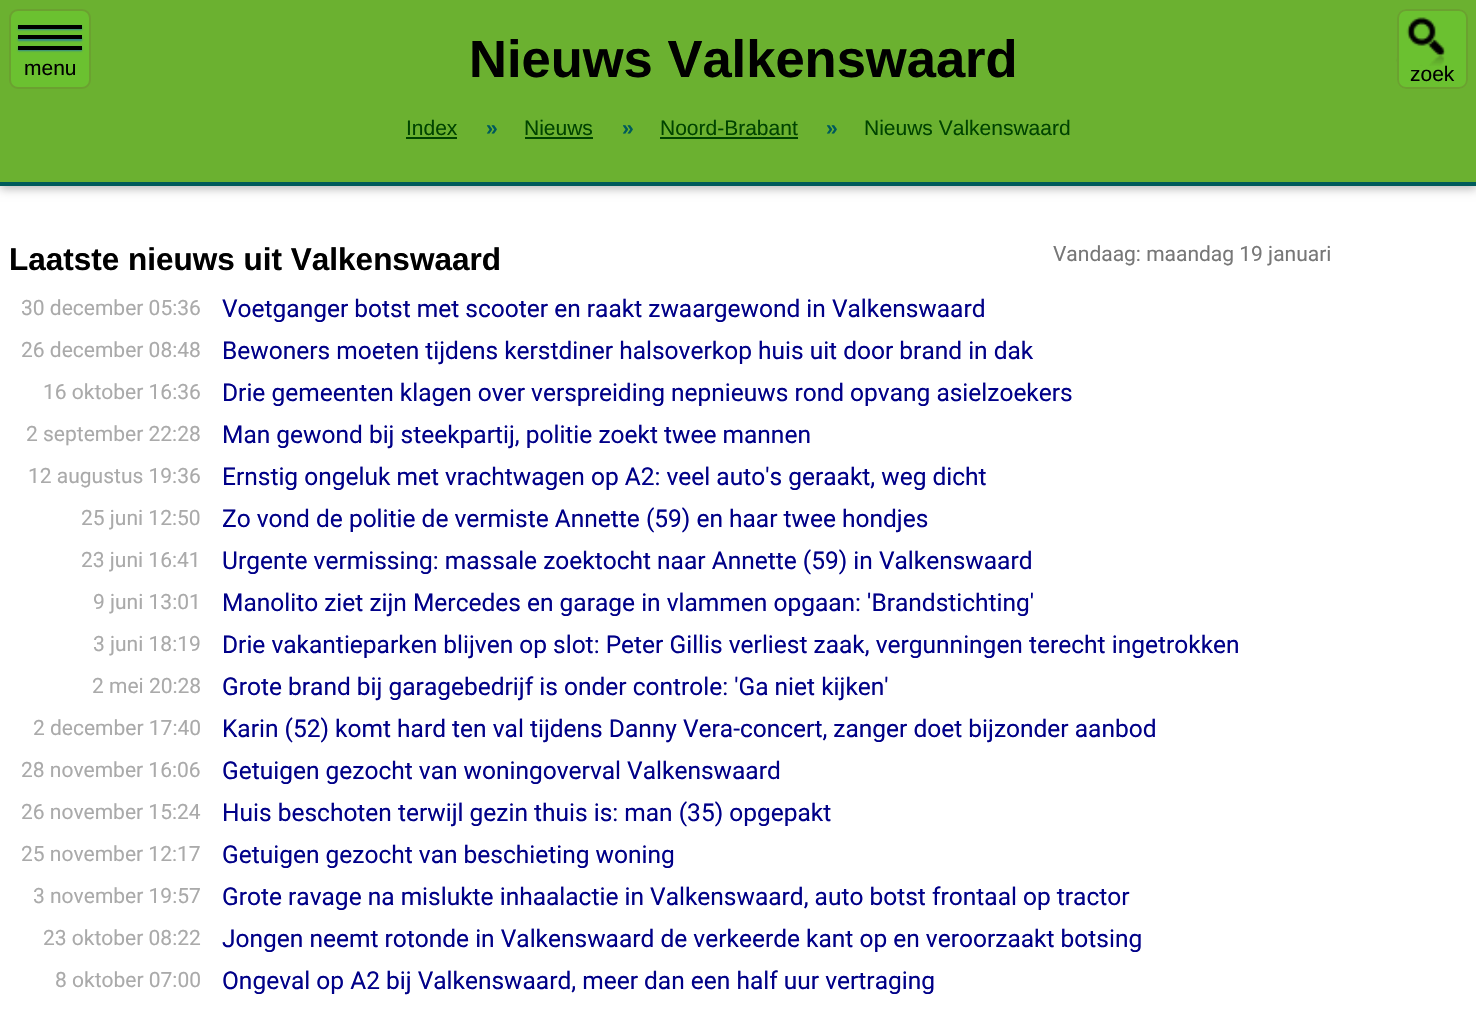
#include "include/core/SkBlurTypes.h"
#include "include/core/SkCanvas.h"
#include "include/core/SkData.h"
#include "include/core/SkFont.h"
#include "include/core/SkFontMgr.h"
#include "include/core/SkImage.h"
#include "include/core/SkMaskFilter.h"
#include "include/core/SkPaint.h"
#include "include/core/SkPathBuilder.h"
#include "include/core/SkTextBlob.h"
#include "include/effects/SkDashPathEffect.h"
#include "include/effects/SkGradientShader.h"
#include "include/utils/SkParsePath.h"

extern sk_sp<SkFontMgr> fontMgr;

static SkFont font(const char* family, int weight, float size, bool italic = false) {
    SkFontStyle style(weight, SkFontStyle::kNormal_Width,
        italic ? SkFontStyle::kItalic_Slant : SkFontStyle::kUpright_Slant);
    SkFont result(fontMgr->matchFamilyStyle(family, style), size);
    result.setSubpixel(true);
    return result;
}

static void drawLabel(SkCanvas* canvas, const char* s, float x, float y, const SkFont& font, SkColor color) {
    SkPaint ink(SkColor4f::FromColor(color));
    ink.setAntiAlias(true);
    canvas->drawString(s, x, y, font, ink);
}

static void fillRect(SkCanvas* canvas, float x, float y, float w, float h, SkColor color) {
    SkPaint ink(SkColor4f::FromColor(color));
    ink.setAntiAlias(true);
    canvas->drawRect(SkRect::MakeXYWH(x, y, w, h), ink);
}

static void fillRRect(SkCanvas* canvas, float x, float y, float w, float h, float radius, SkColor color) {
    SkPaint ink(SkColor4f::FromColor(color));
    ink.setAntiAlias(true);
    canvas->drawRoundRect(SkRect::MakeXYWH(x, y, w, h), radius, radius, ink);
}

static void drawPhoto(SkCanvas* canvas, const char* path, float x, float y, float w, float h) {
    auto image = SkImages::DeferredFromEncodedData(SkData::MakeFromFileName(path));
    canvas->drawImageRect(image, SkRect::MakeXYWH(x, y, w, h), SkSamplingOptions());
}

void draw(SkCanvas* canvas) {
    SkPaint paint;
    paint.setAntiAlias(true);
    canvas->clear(0xFFFFFFFF);
    paint.setColor(0xFFBBBBBB);
    paint.setMaskFilter(SkMaskFilter::MakeBlur(kNormal_SkBlurStyle, 4.5f));
    canvas->drawRect(SkRect::MakeXYWH(0, 4, 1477, 185), paint);
    paint.setMaskFilter(nullptr);
    fillRect(canvas, 0, 0, 1476, 182, 0xFF6BB130);
    fillRect(canvas, 0, 182, 1476, 4, 0xFF005B5B);
    paint.setColor(0xFF6BC130);
    canvas->drawRoundRect(SkRect::MakeXYWH(10, 10, 80, 78), 8, 8, paint);
    paint.setStroke(true);
    paint.setStrokeWidth(2);
    paint.setColor(0xFF6BA130);
    canvas->drawRoundRect(SkRect::MakeXYWH(10, 10, 80, 78), 8, 8, paint);
    paint.setStroke(false);
    paint.setColor(0xFF338888);
    paint.setMaskFilter(SkMaskFilter::MakeBlur(kNormal_SkBlurStyle, 1));
    canvas->drawRect(SkRect::MakeXYWH(18, 26, 64, 4), paint);
    paint.setMaskFilter(nullptr);
    fillRect(canvas, 18, 25, 64, 4, 0xFF000000);
    paint.setMaskFilter(SkMaskFilter::MakeBlur(kNormal_SkBlurStyle, 1));
    canvas->drawRect(SkRect::MakeXYWH(18, 37, 64, 4), paint);
    paint.setMaskFilter(nullptr);
    fillRect(canvas, 18, 35, 64, 4, 0xFF000000);
    paint.setMaskFilter(SkMaskFilter::MakeBlur(kNormal_SkBlurStyle, 1));
    canvas->drawRect(SkRect::MakeXYWH(18, 47, 64, 4), paint);
    paint.setMaskFilter(nullptr);
    fillRect(canvas, 18, 46, 64, 4, 0xFF000000);
    SkFont font1 = font("Liberation Sans", 400, 21);
    drawLabel(canvas, "menu", 24, 75, font1, 0xFF000000);
    SkFont font2 = font("Liberation Sans", 700, 52.5f);
    drawLabel(canvas, "Nieuws Valkenswaard", 469, 77, font2, 0xFF000000);
    drawLabel(canvas, "Index", 406, 135, font1, 0xFF004400);
    fillRect(canvas, 406, 137, 51, 2, 0xFF004400);
    SkFont font3 = font("Liberation Sans", 700, 21);
    drawLabel(canvas, "»", 486, 135, font3, 0xFF005B5B);
    drawLabel(canvas, "Nieuws", 524, 135, font1, 0xFF004400);
    fillRect(canvas, 525, 137, 68, 2, 0xFF004400);
    drawLabel(canvas, "»", 622, 135, font3, 0xFF005B5B);
    drawLabel(canvas, "Noord-Brabant", 660, 135, font1, 0xFF004400);
    fillRect(canvas, 660, 137, 138, 2, 0xFF004400);
    drawLabel(canvas, "»", 826, 135, font3, 0xFF005B5B);
    drawLabel(canvas, "Nieuws Valkenswaard", 864, 135, font1, 0xFF004400);
    fillRRect(canvas, 1397, 9, 71, 80, 9, 0xFF6BC130);
    drawPhoto(canvas, "assets/img1.png", 1396, 17, 50, 49);
    paint.setStroke(true);
    paint.setColor(0xFF6BA130);
    canvas->drawRoundRect(SkRect::MakeXYWH(1398, 10, 69, 78), 8, 8, paint);
    drawLabel(canvas, "zoek", 1410, 81, font1, 0xFF000000);
    SkFont font4 = font("Liberation Sans", 700, 31.5f);
    drawLabel(canvas, "Laatste nieuws uit Valkenswaard", 9, 270, font4, 0xFF000000);
    SkFont font5 = font("Roboto", 400, 21);
    drawLabel(canvas, "Vandaag: maandag 19 januari", 1053, 261, font5, 0xFF777777);
    drawLabel(canvas, "30 december 05:36", 21, 315, font5, 0xFFAAAAAA);
    SkFont font6 = font("Roboto", 400, 24.5f);
    drawLabel(canvas, "Voetganger botst met scooter en raakt zwaargewond in Valkenswaard", 222, 317, font6, 0xFF000088);
    drawLabel(canvas, "26 december 08:48", 21, 357, font5, 0xFFAAAAAA);
    drawLabel(canvas, "Bewoners moeten tijdens kerstdiner halsoverkop huis uit door brand in dak", 222, 359, font6, 0xFF000088);
    drawLabel(canvas, "16 oktober 16:36", 43, 399, font5, 0xFFAAAAAA);
    drawLabel(canvas, "Drie gemeenten klagen over verspreiding nepnieuws rond opvang asielzoekers", 222, 401, font6, 0xFF000088);
    drawLabel(canvas, "2 september 22:28", 26, 441, font5, 0xFFAAAAAA);
    drawLabel(canvas, "Man gewond bij steekpartij, politie zoekt twee mannen", 222, 443, font6, 0xFF000088);
    drawLabel(canvas, "12 augustus 19:36", 28, 483, font5, 0xFFAAAAAA);
    drawLabel(canvas, "Ernstig ongeluk met vrachtwagen op A2: veel auto's geraakt, weg dicht", 222, 485, font6, 0xFF000088);
    drawLabel(canvas, "25 juni 12:50", 81, 525, font5, 0xFFAAAAAA);
    drawLabel(canvas, "Zo vond de politie de vermiste Annette (59) en haar twee hondjes", 222, 527, font6, 0xFF000088);
    drawLabel(canvas, "23 juni 16:41", 81, 567, font5, 0xFFAAAAAA);
    drawLabel(canvas, "Urgente vermissing: massale zoektocht naar Annette (59) in Valkenswaard", 222, 569, font6, 0xFF000088);
    drawLabel(canvas, "9 juni 13:01", 93, 609, font5, 0xFFAAAAAA);
    drawLabel(canvas, "Manolito ziet zijn Mercedes en garage in vlammen opgaan: 'Brandstichting'", 222, 611, font6, 0xFF000088);
    drawLabel(canvas, "3 juni 18:19", 93, 651, font5, 0xFFAAAAAA);
    drawLabel(canvas, "Drie vakantieparken blijven op slot: Peter Gillis verliest zaak, vergunningen terecht ingetrokken", 222, 653, font6, 0xFF000088);
    drawLabel(canvas, "2 mei 20:28", 92, 693, font5, 0xFFAAAAAA);
    drawLabel(canvas, "Grote brand bij garagebedrijf is onder controle: 'Ga niet kijken'", 222, 695, font6, 0xFF000088);
    drawLabel(canvas, "2 december 17:40", 33, 735, font5, 0xFFAAAAAA);
    drawLabel(canvas, "Karin (52) komt hard ten val tijdens Danny Vera-concert, zanger doet bijzonder aanbod", 222, 737, font6, 0xFF000088);
    drawLabel(canvas, "28 november 16:06", 21, 777, font5, 0xFFAAAAAA);
    drawLabel(canvas, "Getuigen gezocht van woningoverval Valkenswaard", 222, 779, font6, 0xFF000088);
    drawLabel(canvas, "26 november 15:24", 21, 819, font5, 0xFFAAAAAA);
    drawLabel(canvas, "Huis beschoten terwijl gezin thuis is: man (35) opgepakt", 222, 821, font6, 0xFF000088);
    drawLabel(canvas, "25 november 12:17", 21, 861, font5, 0xFFAAAAAA);
    drawLabel(canvas, "Getuigen gezocht van beschieting woning", 222, 863, font6, 0xFF000088);
    drawLabel(canvas, "3 november 19:57", 33, 903, font5, 0xFFAAAAAA);
    drawLabel(canvas, "Grote ravage na mislukte inhaalactie in Valkenswaard, auto botst frontaal op tractor", 222, 905, font6, 0xFF000088);
    drawLabel(canvas, "23 oktober 08:22", 43, 945, font5, 0xFFAAAAAA);
    drawLabel(canvas, "Jongen neemt rotonde in Valkenswaard de verkeerde kant op en veroorzaakt botsing", 222, 947, font6, 0xFF000088);
    drawLabel(canvas, "8 oktober 07:00", 55, 987, font5, 0xFFAAAAAA);
    drawLabel(canvas, "Ongeval op A2 bij Valkenswaard, meer dan een half uur vertraging", 222, 989, font6, 0xFF000088);
}
